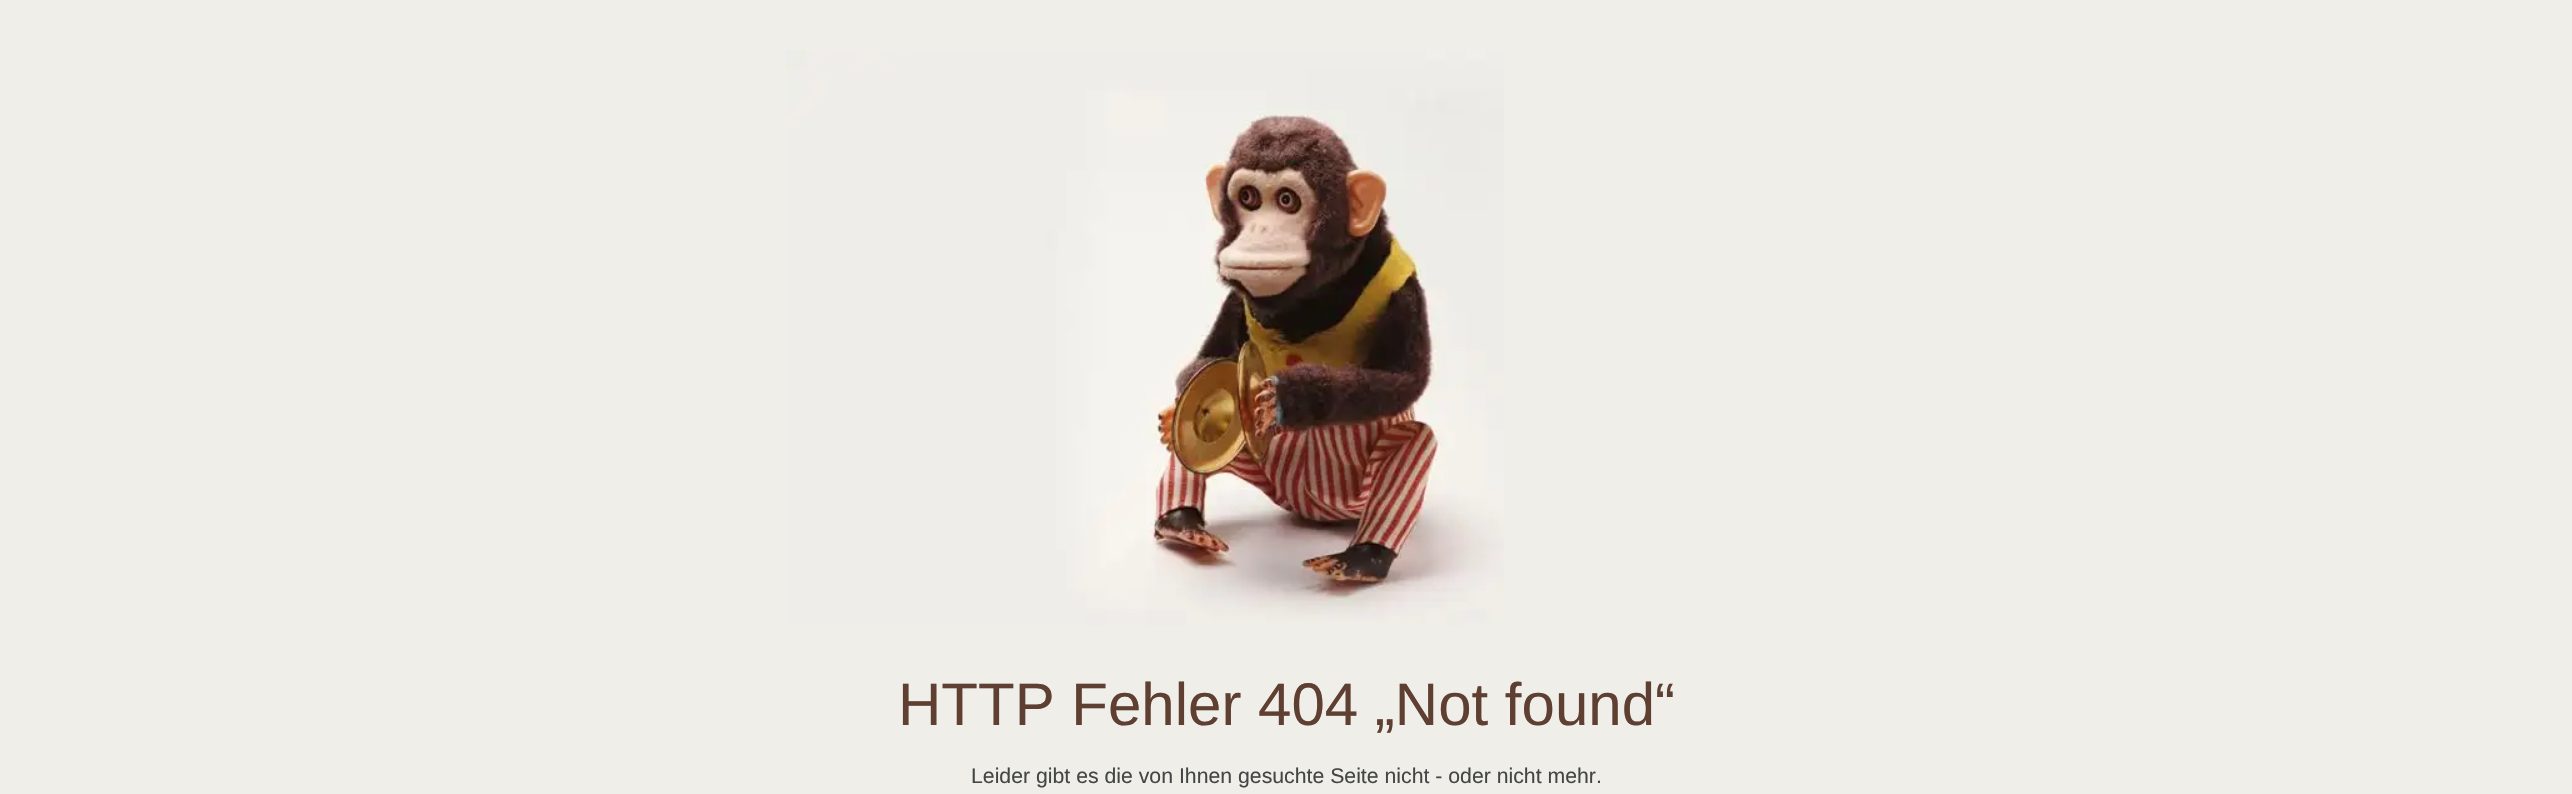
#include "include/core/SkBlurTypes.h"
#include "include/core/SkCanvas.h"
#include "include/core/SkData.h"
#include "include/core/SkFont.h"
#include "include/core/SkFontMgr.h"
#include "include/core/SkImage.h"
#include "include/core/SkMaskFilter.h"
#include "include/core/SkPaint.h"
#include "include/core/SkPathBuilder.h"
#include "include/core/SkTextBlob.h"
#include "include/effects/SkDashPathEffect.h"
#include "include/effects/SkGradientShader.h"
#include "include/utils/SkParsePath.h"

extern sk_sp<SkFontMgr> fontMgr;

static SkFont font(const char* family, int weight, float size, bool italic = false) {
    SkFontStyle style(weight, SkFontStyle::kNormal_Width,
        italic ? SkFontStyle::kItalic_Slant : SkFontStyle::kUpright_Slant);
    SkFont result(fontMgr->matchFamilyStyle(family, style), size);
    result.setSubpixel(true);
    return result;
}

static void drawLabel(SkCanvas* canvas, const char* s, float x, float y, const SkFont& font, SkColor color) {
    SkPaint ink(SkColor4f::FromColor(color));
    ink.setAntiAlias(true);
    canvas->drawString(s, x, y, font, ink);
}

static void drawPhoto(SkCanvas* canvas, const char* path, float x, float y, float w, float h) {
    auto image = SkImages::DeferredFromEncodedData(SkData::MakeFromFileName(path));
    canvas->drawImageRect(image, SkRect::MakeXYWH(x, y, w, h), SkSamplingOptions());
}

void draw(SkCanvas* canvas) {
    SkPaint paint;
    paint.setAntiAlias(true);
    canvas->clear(0xFFEFEEE9);
    drawPhoto(canvas, "assets/img1.png", 786, 50, 718, 575);
    SkFont font1 = font("Liberation Sans", 400, 60);
    drawLabel(canvas, "HTTP Fehler 404 „Not found“", 898, 725, font1, 0xFF5F3F32);
    SkFont font2 = font("Liberation Sans", 400, 21.25f);
    drawLabel(canvas, "Leider gibt es die von Ihnen gesuchte Seite nicht - oder nicht mehr.", 971, 783, font2, 0xFF444645);
}
